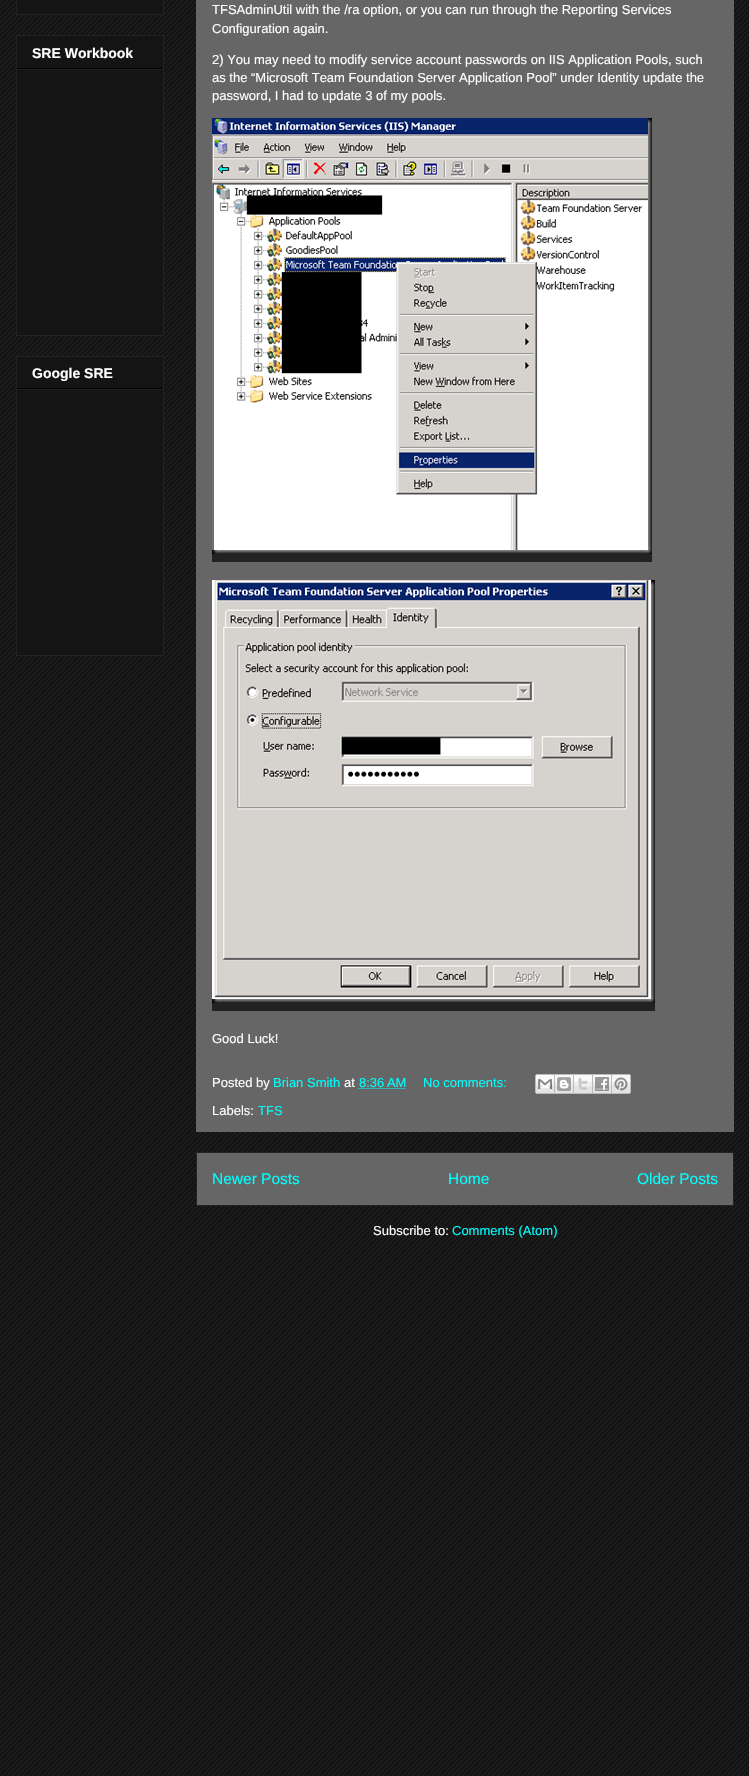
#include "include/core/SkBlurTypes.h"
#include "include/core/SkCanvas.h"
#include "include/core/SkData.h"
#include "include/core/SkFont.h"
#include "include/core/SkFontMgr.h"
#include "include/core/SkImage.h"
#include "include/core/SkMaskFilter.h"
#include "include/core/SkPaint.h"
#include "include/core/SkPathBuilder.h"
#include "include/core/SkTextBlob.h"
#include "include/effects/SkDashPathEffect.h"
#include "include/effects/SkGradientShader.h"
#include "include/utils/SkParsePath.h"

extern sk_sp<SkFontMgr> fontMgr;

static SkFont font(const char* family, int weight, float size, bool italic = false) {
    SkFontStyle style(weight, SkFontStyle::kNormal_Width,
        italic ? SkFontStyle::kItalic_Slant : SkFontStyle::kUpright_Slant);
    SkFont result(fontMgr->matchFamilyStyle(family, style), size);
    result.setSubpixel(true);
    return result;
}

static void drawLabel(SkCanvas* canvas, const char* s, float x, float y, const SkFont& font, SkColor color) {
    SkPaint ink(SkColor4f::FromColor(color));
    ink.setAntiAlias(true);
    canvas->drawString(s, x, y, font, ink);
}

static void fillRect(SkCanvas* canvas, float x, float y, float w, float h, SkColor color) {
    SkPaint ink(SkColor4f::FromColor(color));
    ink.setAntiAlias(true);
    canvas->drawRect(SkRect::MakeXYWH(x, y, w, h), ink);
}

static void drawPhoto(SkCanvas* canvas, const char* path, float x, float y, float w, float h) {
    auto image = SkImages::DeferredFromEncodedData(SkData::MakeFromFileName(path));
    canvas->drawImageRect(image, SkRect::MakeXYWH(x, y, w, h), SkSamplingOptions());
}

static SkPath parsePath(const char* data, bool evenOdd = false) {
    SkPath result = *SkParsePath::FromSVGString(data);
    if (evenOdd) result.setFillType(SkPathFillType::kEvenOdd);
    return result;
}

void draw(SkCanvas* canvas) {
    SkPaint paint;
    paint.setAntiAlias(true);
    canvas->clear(0xFF141414);
    drawPhoto(canvas, "assets/img1.png", 0, 0, 749, 1776);
    paint.setColor(0xFF141414);
    canvas->drawRect(SkRect::MakeXYWH(16.5f, -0.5f, 147, 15), paint);
    paint.setStroke(true);
    paint.setStrokeWidth(1);
    paint.setColor(0xFF222222);
    canvas->drawRect(SkRect::MakeXYWH(16.5f, -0.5f, 147, 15), paint);
    paint.setStroke(false);
    paint.setColor(0xFF141414);
    canvas->drawRect(SkRect::MakeXYWH(16.5f, 35.5f, 147, 300), paint);
    paint.setStroke(true);
    paint.setColor(0xFF222222);
    canvas->drawRect(SkRect::MakeXYWH(16.5f, 35.5f, 147, 300), paint);
    fillRect(canvas, 17, 68, 146, 1, 0xFF000000);
    SkFont font1 = font("Liberation Sans", 700, 14);
    drawLabel(canvas, "SRE Workbook", 32, 58, font1, 0xFFFFFFFF);
    fillRect(canvas, 17, 69, 146, 1, 0xFF222222);
    paint.setStroke(false);
    paint.setColor(0xFF141414);
    canvas->drawRect(SkRect::MakeXYWH(16.5f, 356.5f, 147, 299), paint);
    paint.setStroke(true);
    paint.setColor(0xFF222222);
    canvas->drawRect(SkRect::MakeXYWH(16.5f, 356.5f, 147, 299), paint);
    fillRect(canvas, 17, 388, 146, 1, 0xFF000000);
    drawLabel(canvas, "Google SRE", 32, 378, font1, 0xFFFFFFFF);
    fillRect(canvas, 17, 389, 146, 1, 0xFF222222);
    fillRect(canvas, 196, 0, 538, 1132, 0xFF666666);
    SkFont font2 = font("Liberation Sans", 400, 13);
    drawLabel(canvas, "TFSAdminUtil with the /ra option, or you can run through the Reporting Services", 212, 14, font2, 0xFFFFFFFF);
    drawLabel(canvas, "Configuration again.", 212, 33, font2, 0xFFFFFFFF);
    drawLabel(canvas, "2) You may need to modify service account passwords on IIS Application Pools, such", 212, 64, font2, 0xFFFFFFFF);
    drawLabel(canvas, "as the “Microsoft Team Foundation Server Application Pool” under Identity update the", 212, 82, font2, 0xFFFFFFFF);
    drawLabel(canvas, "password, I had to update 3 of my pools.", 212, 100, font2, 0xFFFFFFFF);
    drawPhoto(canvas, "assets/img2.png", 212, 118, 440, 436);
    fillRect(canvas, 212, 554, 440, 8, 0xFF222222);
    drawPhoto(canvas, "assets/img3.png", 212, 580, 443, 423);
    fillRect(canvas, 212, 1003, 443, 8, 0xFF222222);
    drawLabel(canvas, "Good Luck!", 212, 1043, font2, 0xFFFFFFFF);
    drawLabel(canvas, "Posted by", 212, 1087, font2, 0xFFFFFFFF);
    drawLabel(canvas, "Brian Smith", 273, 1087, font2, 0xFF00FFFF);
    drawLabel(canvas, "at", 344, 1087, font2, 0xFFFFFFFF);
    drawLabel(canvas, "8:36 AM", 359, 1087, font2, 0xFF00FFFF);
    paint.setColor(0xFF00FFFF);
    paint.setPathEffect(SkDashPathEffect::Make({{1, 1}}, 0));
    canvas->drawPath(parsePath("M358.5 1088.5H406"), paint);
    paint.setPathEffect(nullptr);
    drawLabel(canvas, "No comments:", 423, 1087, font2, 0xFF00FFFF);
    drawPhoto(canvas, "assets/img4.png", 535, 1074, 20, 20);
    drawPhoto(canvas, "assets/img5.png", 555, 1074, 19, 20);
    drawPhoto(canvas, "assets/img6.png", 574, 1074, 19, 20);
    drawPhoto(canvas, "assets/img7.png", 593, 1074, 19, 20);
    drawPhoto(canvas, "assets/img8.png", 612, 1074, 19, 20);
    drawLabel(canvas, "Labels:", 212, 1115, font2, 0xFFFFFFFF);
    drawLabel(canvas, "TFS", 258, 1115, font2, 0xFF00FFFF);
    paint.setStroke(false);
    paint.setColor(0xFF666666);
    canvas->drawRect(SkRect::MakeXYWH(196.5f, 1152.5f, 537, 53), paint);
    paint.setStroke(true);
    paint.setColor(0xFF222222);
    canvas->drawRect(SkRect::MakeXYWH(196.5f, 1152.5f, 537, 53), paint);
    SkFont font3 = font("Liberation Sans", 400, 15.5f);
    drawLabel(canvas, "Newer Posts", 212, 1184, font3, 0xFF00FFFF);
    drawLabel(canvas, "Home", 448, 1184, font3, 0xFF00FFFF);
    drawLabel(canvas, "Older Posts", 637, 1184, font3, 0xFF00FFFF);
    drawLabel(canvas, "Subscribe to:", 373, 1235, font2, 0xFFFFFFFF);
    drawLabel(canvas, "Comments (Atom)", 452, 1235, font2, 0xFF00FFFF);
}
